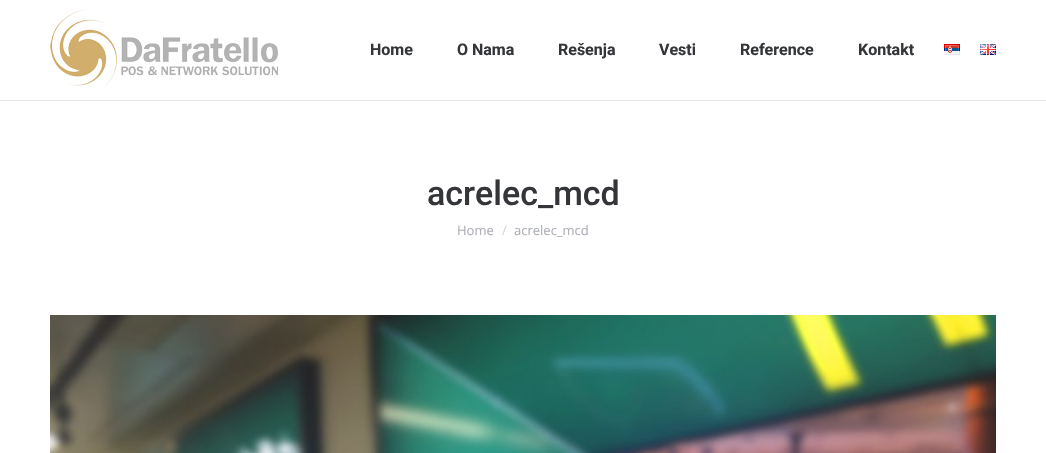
#include "include/core/SkBlurTypes.h"
#include "include/core/SkCanvas.h"
#include "include/core/SkData.h"
#include "include/core/SkFont.h"
#include "include/core/SkFontMgr.h"
#include "include/core/SkImage.h"
#include "include/core/SkMaskFilter.h"
#include "include/core/SkPaint.h"
#include "include/core/SkPathBuilder.h"
#include "include/core/SkTextBlob.h"
#include "include/effects/SkDashPathEffect.h"
#include "include/effects/SkGradientShader.h"
#include "include/utils/SkParsePath.h"

extern sk_sp<SkFontMgr> fontMgr;

static SkFont font(const char* family, int weight, float size, bool italic = false) {
    SkFontStyle style(weight, SkFontStyle::kNormal_Width,
        italic ? SkFontStyle::kItalic_Slant : SkFontStyle::kUpright_Slant);
    SkFont result(fontMgr->matchFamilyStyle(family, style), size);
    result.setSubpixel(true);
    return result;
}

static void drawLabel(SkCanvas* canvas, const char* s, float x, float y, const SkFont& font, SkColor color) {
    SkPaint ink(SkColor4f::FromColor(color));
    ink.setAntiAlias(true);
    canvas->drawString(s, x, y, font, ink);
}

static void fillRect(SkCanvas* canvas, float x, float y, float w, float h, SkColor color) {
    SkPaint ink(SkColor4f::FromColor(color));
    ink.setAntiAlias(true);
    canvas->drawRect(SkRect::MakeXYWH(x, y, w, h), ink);
}

static void drawPhoto(SkCanvas* canvas, const char* path, float x, float y, float w, float h) {
    auto image = SkImages::DeferredFromEncodedData(SkData::MakeFromFileName(path));
    canvas->drawImageRect(image, SkRect::MakeXYWH(x, y, w, h), SkSamplingOptions());
}

void draw(SkCanvas* canvas) {
    SkPaint paint;
    paint.setAntiAlias(true);
    canvas->clear(0xFFFFFFFF);
    fillRect(canvas, 0, 100, 1046, 1, 0xFFE6E7E9);
    drawPhoto(canvas, "assets/img1.png", 50, 10, 228, 78);
    SkFont font1 = font("Roboto", 700, 16);
    drawLabel(canvas, "Home", 370, 55, font1, 0xFF333539);
    drawLabel(canvas, "O Nama", 457, 55, font1, 0xFF333539);
    drawLabel(canvas, "Rešenja", 558, 55, font1, 0xFF333539);
    drawLabel(canvas, "Vesti", 659, 55, font1, 0xFF333539);
    drawLabel(canvas, "Reference", 740, 55, font1, 0xFF333539);
    drawLabel(canvas, "Kontakt", 858, 55, font1, 0xFF333539);
    drawPhoto(canvas, "assets/img2.png", 944, 44, 16, 11);
    drawPhoto(canvas, "assets/img3.png", 980, 44, 16, 11);
    SkFont font2 = font("Roboto", 500, 34);
    drawLabel(canvas, "acrelec_mcd", 427, 205, font2, 0xFF333539);
    SkFont font3 = font("Open Sans", 400, 13);
    drawLabel(canvas, "Home", 457, 235, font3, 0xFFADB0B6);
    drawLabel(canvas, "/", 502, 235, font3, 0xFFD6D8DB);
    drawLabel(canvas, "acrelec_mcd", 514, 235, font3, 0xFFADB0B6);
    drawPhoto(canvas, "assets/img4.png", 50, 315, 946, 138);
}
